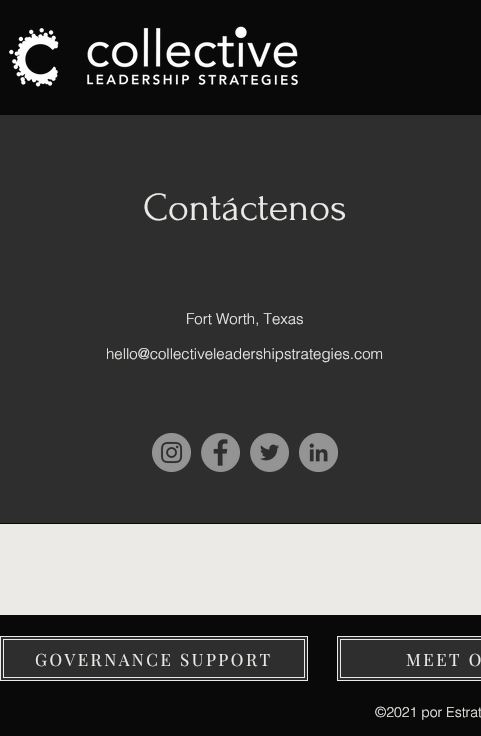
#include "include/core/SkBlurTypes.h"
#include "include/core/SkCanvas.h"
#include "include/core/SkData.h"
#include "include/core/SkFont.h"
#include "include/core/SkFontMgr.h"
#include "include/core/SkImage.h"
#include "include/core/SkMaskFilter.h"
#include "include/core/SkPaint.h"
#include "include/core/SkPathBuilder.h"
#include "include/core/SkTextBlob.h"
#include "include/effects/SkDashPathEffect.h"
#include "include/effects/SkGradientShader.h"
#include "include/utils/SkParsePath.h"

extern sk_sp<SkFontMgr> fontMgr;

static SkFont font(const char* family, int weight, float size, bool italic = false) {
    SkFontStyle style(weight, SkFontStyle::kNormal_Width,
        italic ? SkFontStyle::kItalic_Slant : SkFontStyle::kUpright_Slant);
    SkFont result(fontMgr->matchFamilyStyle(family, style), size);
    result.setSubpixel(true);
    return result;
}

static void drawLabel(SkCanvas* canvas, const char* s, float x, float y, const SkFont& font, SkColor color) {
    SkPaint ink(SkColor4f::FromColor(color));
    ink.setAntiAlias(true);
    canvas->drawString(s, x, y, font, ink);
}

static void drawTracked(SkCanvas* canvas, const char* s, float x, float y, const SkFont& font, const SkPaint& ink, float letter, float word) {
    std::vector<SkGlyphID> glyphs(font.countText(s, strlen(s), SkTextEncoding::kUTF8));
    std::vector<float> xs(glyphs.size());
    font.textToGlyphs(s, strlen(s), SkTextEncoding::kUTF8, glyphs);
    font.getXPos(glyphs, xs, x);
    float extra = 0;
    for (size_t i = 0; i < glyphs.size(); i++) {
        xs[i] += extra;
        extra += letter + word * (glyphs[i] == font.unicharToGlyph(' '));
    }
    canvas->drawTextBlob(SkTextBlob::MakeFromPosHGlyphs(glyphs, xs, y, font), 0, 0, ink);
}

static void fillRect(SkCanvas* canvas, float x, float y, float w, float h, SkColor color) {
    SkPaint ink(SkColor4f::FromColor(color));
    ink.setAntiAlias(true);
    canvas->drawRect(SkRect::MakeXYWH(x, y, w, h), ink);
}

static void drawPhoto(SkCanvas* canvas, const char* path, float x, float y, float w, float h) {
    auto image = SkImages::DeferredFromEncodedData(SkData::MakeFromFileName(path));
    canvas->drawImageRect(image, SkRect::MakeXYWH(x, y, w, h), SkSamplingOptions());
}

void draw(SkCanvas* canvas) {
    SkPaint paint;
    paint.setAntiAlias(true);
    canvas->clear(0xFFEBEAE6);
    fillRect(canvas, 0, 0, 481, 115, 0xFF090909);
    drawPhoto(canvas, "assets/img1.png", 9, 28, 50, 59);
    drawPhoto(canvas, "assets/img2.png", 87, 26, 211, 60);
    fillRect(canvas, 0, 115, 481, 408, 0xFF2E2E2E);
    SkFont font1 = font("Forum", 400, 40);
    drawLabel(canvas, "Contáctenos", 143, 220, font1, 0xFFEBEAE6);
    SkFont font2 = font("helvetica", 300, 15);
    drawLabel(canvas, "Fort Worth, Texas", 186, 324, font2, 0xFFEBEAE6);
    drawLabel(canvas, "hello@collectiveleadershipstrategies.com", 106, 359, font2, 0xFFEBEAE6);
    drawPhoto(canvas, "assets/img3.png", 152, 433, 39, 39);
    drawPhoto(canvas, "assets/img4.png", 201, 433, 39, 39);
    drawPhoto(canvas, "assets/img5.png", 250, 433, 39, 39);
    drawPhoto(canvas, "assets/img6.png", 299, 433, 39, 39);
    fillRect(canvas, 0, 523, 481, 1, 0xFF090909);
    fillRect(canvas, 0, 615, 481, 121, 0xFF090909);
    paint.setColor(0xFF2E2E2E);
    canvas->drawRect(SkRect::MakeXYWH(0.5f, 636.5f, 307, 44), paint);
    paint.setStroke(true);
    paint.setStrokeWidth(1);
    paint.setColor(0xFFEBEAE6);
    canvas->drawRect(SkRect::MakeXYWH(0.5f, 636.5f, 307, 44), paint);
    canvas->drawRect(SkRect::MakeXYWH(3.5f, 639.5f, 301, 38), paint);
    SkFont font3 = font("Playfair Display", 400, 17);
    paint.setStroke(false);
    drawTracked(canvas, "GOVERNANCE SUPPORT", 35, 666, font3, paint, 2.5f, 0);
    paint.setColor(0xFF2E2E2E);
    canvas->drawRect(SkRect::MakeXYWH(337.5f, 636.5f, 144, 44), paint);
    paint.setStroke(true);
    paint.setColor(0xFFEBEAE6);
    canvas->drawRect(SkRect::MakeXYWH(337.5f, 636.5f, 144, 44), paint);
    canvas->drawRect(SkRect::MakeXYWH(340.5f, 639.5f, 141, 38), paint);
    paint.setStroke(false);
    drawTracked(canvas, "MEET O", 406, 666, font3, paint, 2.5f, 0);
    SkFont font4 = font("helvetica", 300, 14);
    drawLabel(canvas, "©2021 por Estrat", 375, 717, font4, 0xFFEBEAE6);
}
